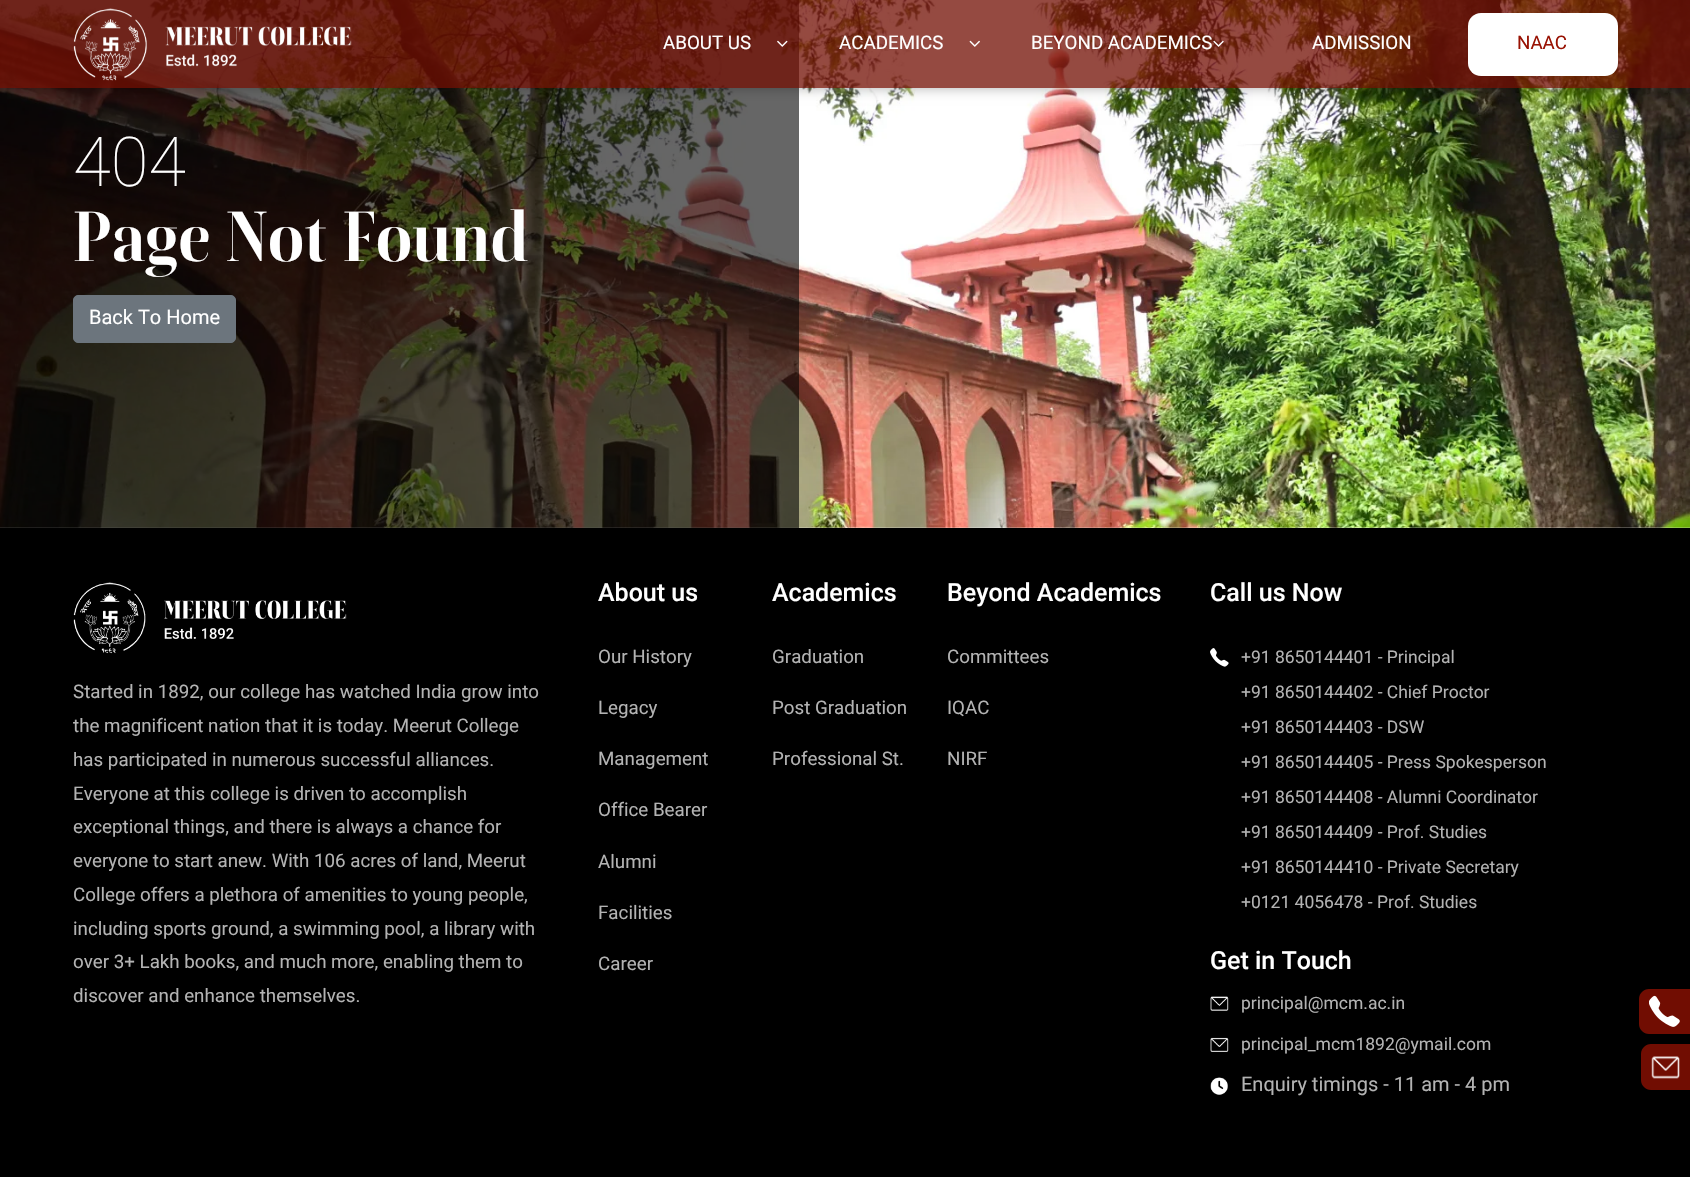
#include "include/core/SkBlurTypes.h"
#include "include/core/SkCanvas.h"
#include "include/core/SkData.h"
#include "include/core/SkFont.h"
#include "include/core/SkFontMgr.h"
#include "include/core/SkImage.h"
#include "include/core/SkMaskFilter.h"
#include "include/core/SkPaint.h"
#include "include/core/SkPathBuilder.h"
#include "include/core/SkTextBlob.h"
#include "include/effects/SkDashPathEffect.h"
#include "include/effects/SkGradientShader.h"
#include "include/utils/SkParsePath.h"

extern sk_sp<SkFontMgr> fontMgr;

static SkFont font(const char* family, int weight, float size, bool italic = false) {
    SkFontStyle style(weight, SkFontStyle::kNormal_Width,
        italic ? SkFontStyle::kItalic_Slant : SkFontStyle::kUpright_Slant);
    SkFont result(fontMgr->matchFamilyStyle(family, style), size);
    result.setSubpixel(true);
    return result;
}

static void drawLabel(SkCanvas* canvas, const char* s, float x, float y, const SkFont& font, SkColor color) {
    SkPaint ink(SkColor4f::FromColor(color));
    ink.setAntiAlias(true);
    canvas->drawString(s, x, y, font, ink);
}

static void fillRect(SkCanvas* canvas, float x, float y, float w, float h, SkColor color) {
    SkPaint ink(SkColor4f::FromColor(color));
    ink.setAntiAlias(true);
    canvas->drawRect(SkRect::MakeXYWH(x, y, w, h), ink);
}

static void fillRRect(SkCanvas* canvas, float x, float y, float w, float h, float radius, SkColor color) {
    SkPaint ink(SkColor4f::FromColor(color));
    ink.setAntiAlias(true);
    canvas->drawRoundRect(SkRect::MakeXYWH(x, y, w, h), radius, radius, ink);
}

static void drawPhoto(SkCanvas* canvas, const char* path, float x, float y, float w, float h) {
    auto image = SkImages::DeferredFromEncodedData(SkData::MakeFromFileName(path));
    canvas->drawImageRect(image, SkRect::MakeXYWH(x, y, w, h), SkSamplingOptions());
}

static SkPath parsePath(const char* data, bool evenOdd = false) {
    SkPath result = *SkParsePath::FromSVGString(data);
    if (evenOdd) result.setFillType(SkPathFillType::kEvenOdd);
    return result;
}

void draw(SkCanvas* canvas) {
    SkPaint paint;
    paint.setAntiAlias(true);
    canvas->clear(0xFFFFFFFF);
    drawPhoto(canvas, "assets/img5.png", 0, 0, 1690, 528);
    fillRect(canvas, 73, 0, 726, 528, 0x99000000);
    fillRect(canvas, 0, 0, 73, 528, 0x99000000);
    canvas->save();
    canvas->clipPath(parsePath("M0 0H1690V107H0ZM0 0H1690V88H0Z", true), true);
    paint.setColor(0x4D000000);
    paint.setMaskFilter(SkMaskFilter::MakeBlur(kNormal_SkBlurStyle, 6));
    canvas->drawRect(SkRect::MakeXYWH(0, 0, 1690, 88), paint);
    paint.setMaskFilter(nullptr);
    canvas->restore();
    fillRect(canvas, 0, 0, 1690, 88, 0xBF710D02);
    drawPhoto(canvas, "assets/img1.png", 73, 8, 279, 73);
    SkFont font1 = font("Roboto", 400, 18.75f);
    drawLabel(canvas, "ABOUT US", 663, 49, font1, 0xFFFFFFFF);
    drawPhoto(canvas, "assets/img2.png", 777, 40, 11, 7);
    drawLabel(canvas, "ACADEMICS", 839, 49, font1, 0xFFFFFFFF);
    drawPhoto(canvas, "assets/img3.png", 969, 40, 11, 7);
    drawLabel(canvas, "BEYOND ACADEMICS", 1031, 49, font1, 0xFFFFFFFF);
    drawPhoto(canvas, "assets/img4.png", 1213, 40, 11, 7);
    drawLabel(canvas, "ADMISSION", 1312, 49, font1, 0xFFFFFFFF);
    fillRRect(canvas, 1468, 13, 150, 63, 13, 0xFFFFFFFF);
    drawLabel(canvas, "NAAC", 1517, 49, font1, 0xFF991203);
    SkFont font2 = font("Roboto", 100, 68.75f);
    drawLabel(canvas, "404", 73, 186, font2, 0xFFFFFFFF);
    SkFont font3 = font("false", 700, 68.75f);
    drawLabel(canvas, "Page Not Found", 73, 261, font3, 0xFFFFFFFF);
    paint.setColor(0xFF6C757D);
    canvas->drawRoundRect(SkRect::MakeXYWH(73.5f, 295.5f, 162, 47), 4.5f, 4.5f, paint);
    paint.setStroke(true);
    paint.setStrokeWidth(1);
    canvas->drawRoundRect(SkRect::MakeXYWH(73.5f, 295.5f, 162, 47), 4.5f, 4.5f, paint);
    SkFont font4 = font("Roboto", 400, 20);
    drawLabel(canvas, "Back To Home", 89, 324, font4, 0xFFFFFFFF);
    fillRect(canvas, 0, 528, 1690, 649, 0xFF000000);
    drawPhoto(canvas, "assets/img6.png", 73, 582, 274, 72);
    drawLabel(canvas, "Started in 1892, our college has watched India grow into", 73, 698, font1, 0xFFB3B3B3);
    drawLabel(canvas, "the magnificent nation that it is today. Meerut College", 73, 732, font1, 0xFFB3B3B3);
    drawLabel(canvas, "has participated in numerous successful alliances.", 73, 766, font1, 0xFFB3B3B3);
    drawLabel(canvas, "Everyone at this college is driven to accomplish", 73, 800, font1, 0xFFB3B3B3);
    drawLabel(canvas, "exceptional things, and there is always a chance for", 73, 833, font1, 0xFFB3B3B3);
    drawLabel(canvas, "everyone to start anew. With 106 acres of land, Meerut", 73, 867, font1, 0xFFB3B3B3);
    drawLabel(canvas, "College offers a plethora of amenities to young people,", 73, 901, font1, 0xFFB3B3B3);
    drawLabel(canvas, "including sports ground, a swimming pool, a library with", 73, 935, font1, 0xFFB3B3B3);
    drawLabel(canvas, "over 3+ Lakh books, and much more, enabling them to", 73, 968, font1, 0xFFB3B3B3);
    drawLabel(canvas, "discover and enhance themselves.", 73, 1002, font1, 0xFFB3B3B3);
    SkFont font5 = font("Roboto", 500, 25);
    drawLabel(canvas, "About us", 598, 601, font5, 0xFFFFFFFF);
    drawLabel(canvas, "Our History", 598, 663, font1, 0xFFB3B3B3);
    drawLabel(canvas, "Legacy", 598, 714, font1, 0xFFB3B3B3);
    drawLabel(canvas, "Management", 598, 765, font1, 0xFFB3B3B3);
    drawLabel(canvas, "Office Bearer", 598, 816, font1, 0xFFB3B3B3);
    drawLabel(canvas, "Alumni", 598, 868, font1, 0xFFB3B3B3);
    drawLabel(canvas, "Facilities", 598, 919, font1, 0xFFB3B3B3);
    drawLabel(canvas, "Career", 598, 970, font1, 0xFFB3B3B3);
    drawLabel(canvas, "Academics", 772, 601, font5, 0xFFFFFFFF);
    drawLabel(canvas, "Graduation", 772, 663, font1, 0xFFB3B3B3);
    drawLabel(canvas, "Post Graduation", 772, 714, font1, 0xFFB3B3B3);
    drawLabel(canvas, "Professional St.", 772, 765, font1, 0xFFB3B3B3);
    drawLabel(canvas, "Beyond Academics", 947, 601, font5, 0xFFFFFFFF);
    drawLabel(canvas, "Committees", 947, 663, font1, 0xFFB3B3B3);
    drawLabel(canvas, "IQAC", 947, 714, font1, 0xFFB3B3B3);
    drawLabel(canvas, "NIRF", 947, 765, font1, 0xFFB3B3B3);
    drawLabel(canvas, "Call us Now", 1210, 601, font5, 0xFFFFFFFF);
    drawPhoto(canvas, "assets/img7.png", 1210, 648, 19, 19);
    SkFont font6 = font("Roboto", 400, 17.5f);
    drawLabel(canvas, "+91 8650144401 - Principal", 1241, 663, font6, 0xFFB3B3B3);
    drawLabel(canvas, "+91 8650144402 - Chief Proctor", 1241, 698, font6, 0xFFB3B3B3);
    drawLabel(canvas, "+91 8650144403 - DSW", 1241, 733, font6, 0xFFB3B3B3);
    drawLabel(canvas, "+91 8650144405 - Press Spokesperson", 1241, 768, font6, 0xFFB3B3B3);
    drawLabel(canvas, "+91 8650144408 - Alumni Coordinator", 1241, 803, font6, 0xFFB3B3B3);
    drawLabel(canvas, "+91 8650144409 - Prof. Studies", 1241, 838, font6, 0xFFB3B3B3);
    drawLabel(canvas, "+91 8650144410 - Private Secretary", 1241, 873, font6, 0xFFB3B3B3);
    drawLabel(canvas, "+0121 4056478 - Prof. Studies", 1241, 908, font6, 0xFFB3B3B3);
    drawLabel(canvas, "Get in Touch", 1210, 969, font5, 0xFFFFFFFF);
    drawPhoto(canvas, "assets/img8.png", 1210, 996, 19, 15);
    drawLabel(canvas, "principal@mcm.ac.in", 1241, 1009, font6, 0xFFB3B3B3);
    drawPhoto(canvas, "assets/img9.png", 1210, 1037, 19, 15);
    drawLabel(canvas, "principal_mcm1892@ymail.com", 1241, 1050, font6, 0xFFB3B3B3);
    drawPhoto(canvas, "assets/img10.png", 1210, 1077, 18, 18);
    drawLabel(canvas, "Enquiry timings - 11 am - 4 pm", 1241, 1091, font4, 0xFFB3B3B3);
    paint.setStroke(false);
    paint.setColor(0xFF710D02);
    canvas->drawPath(parsePath("M1649 989H1690V1034H1649C1643.5 1034 1639 1029.5 1639 1024V999C1639 993.5 1643.5 989 1649 989Z"), paint);
    drawPhoto(canvas, "assets/img11.png", 1649, 995, 31, 32);
    canvas->drawPath(parsePath("M1651 1044H1690V1090H1651C1645.5 1090 1641 1085.5 1641 1080V1054C1641 1048.5 1645.5 1044 1651 1044Z"), paint);
    drawPhoto(canvas, "assets/img12.png", 1651, 1056, 29, 23);
}
